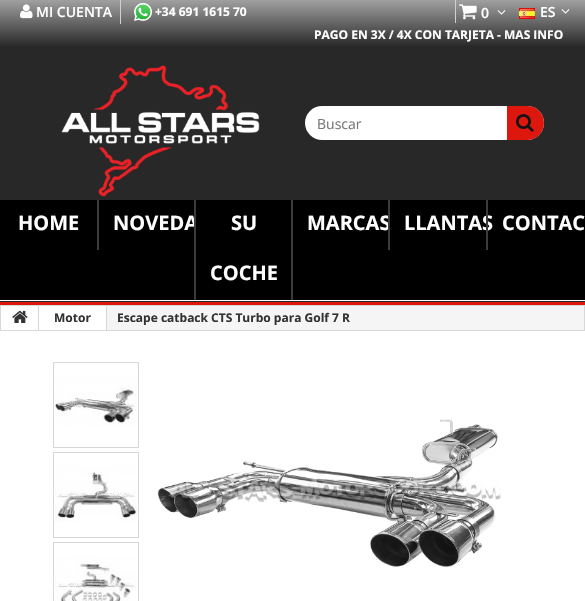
#include "include/core/SkBlurTypes.h"
#include "include/core/SkCanvas.h"
#include "include/core/SkData.h"
#include "include/core/SkFont.h"
#include "include/core/SkFontMgr.h"
#include "include/core/SkImage.h"
#include "include/core/SkMaskFilter.h"
#include "include/core/SkPaint.h"
#include "include/core/SkPathBuilder.h"
#include "include/core/SkTextBlob.h"
#include "include/effects/SkDashPathEffect.h"
#include "include/effects/SkGradientShader.h"
#include "include/utils/SkParsePath.h"

extern sk_sp<SkFontMgr> fontMgr;

static SkFont font(const char* family, int weight, float size, bool italic = false) {
    SkFontStyle style(weight, SkFontStyle::kNormal_Width,
        italic ? SkFontStyle::kItalic_Slant : SkFontStyle::kUpright_Slant);
    SkFont result(fontMgr->matchFamilyStyle(family, style), size);
    result.setSubpixel(true);
    return result;
}

static void drawLabel(SkCanvas* canvas, const char* s, float x, float y, const SkFont& font, SkColor color) {
    SkPaint ink(SkColor4f::FromColor(color));
    ink.setAntiAlias(true);
    canvas->drawString(s, x, y, font, ink);
}

static void fillRect(SkCanvas* canvas, float x, float y, float w, float h, SkColor color) {
    SkPaint ink(SkColor4f::FromColor(color));
    ink.setAntiAlias(true);
    canvas->drawRect(SkRect::MakeXYWH(x, y, w, h), ink);
}

static void fillRRect(SkCanvas* canvas, float x, float y, float w, float h, float radius, SkColor color) {
    SkPaint ink(SkColor4f::FromColor(color));
    ink.setAntiAlias(true);
    canvas->drawRoundRect(SkRect::MakeXYWH(x, y, w, h), radius, radius, ink);
}

static void drawPhoto(SkCanvas* canvas, const char* path, float x, float y, float w, float h) {
    auto image = SkImages::DeferredFromEncodedData(SkData::MakeFromFileName(path));
    canvas->drawImageRect(image, SkRect::MakeXYWH(x, y, w, h), SkSamplingOptions());
}

static SkPath parsePath(const char* data, bool evenOdd = false) {
    SkPath result = *SkParsePath::FromSVGString(data);
    if (evenOdd) result.setFillType(SkPathFillType::kEvenOdd);
    return result;
}

void draw(SkCanvas* canvas) {
    SkPaint paint;
    paint.setAntiAlias(true);
    canvas->clear(0xFF282828);
    {
        const SkColor colors[] = {0xFFA0A0A0, 0xFF282828};
        const float stops[] = {0, 1};
        const SkPoint ends[] = {{293, 0}, {293, 47}};
        paint.setShader(SkGradientShader::MakeLinear(ends, colors, stops, 2, SkTileMode::kClamp));
        paint.setAlpha(255);
    }
    canvas->drawRect(SkRect::MakeXYWH(0, 0, 585, 46), paint);
    fillRect(canvas, 120, 0, 1, 24, 0xFFD1D1D1);
    drawPhoto(canvas, "assets/img1.png", 20, 4, 13, 15);
    SkFont font1 = font("Open Sans", 600, 14);
    drawLabel(canvas, "MI CUENTA", 36, 17, font1, 0xFFFFFFFF);
    drawPhoto(canvas, "assets/img2.png", 134, 3, 18, 18);
    SkFont font2 = font("Open Sans", 700, 12);
    drawLabel(canvas, "+34 691 1615 70", 155, 16, font2, 0xFFFFFFFF);
    fillRect(canvas, 455, 0, 1, 23, 0xFFD1D1D1);
    drawPhoto(canvas, "assets/img3.png", 459, 4, 18, 16);
    drawLabel(canvas, "0", 481, 18, font1, 0xFFFFFFFF);
    drawPhoto(canvas, "assets/img4.png", 497, 10, 9, 5);
    drawPhoto(canvas, "assets/img5.png", 519, 8, 16, 11);
    drawLabel(canvas, "ES", 540, 17, font1, 0xFFFFFFFF);
    drawPhoto(canvas, "assets/img6.png", 561, 9, 9, 5);
    drawLabel(canvas, "PAGO EN 3X / 4X CON TARJETA - MAS INFO", 314, 39, font2, 0xFFFFFFFF);
    drawPhoto(canvas, "assets/img7.png", 61, 65, 199, 132);
    fillRRect(canvas, 305, 106, 239, 34, 17, 0xFFFFFFFF);
    SkFont font3 = font("Open Sans", 400, 14);
    drawLabel(canvas, "Buscar", 317, 129, font3, 0xFF777777);
    paint.setShader(nullptr);
    paint.setColor(0xFFDD170E);
    canvas->drawPath(parsePath("M507 106H527C536.5 106 544 113.5 544 123C544 132.5 536.5 140 527 140H507Z"), paint);
    drawPhoto(canvas, "assets/img8.png", 516, 114, 18, 18);
    fillRect(canvas, 0, 200, 585, 100, 0xFF000000);
    SkFont font4 = font("Open Sans", 700, 20);
    drawLabel(canvas, "HOME", 18, 230, font4, 0xFFFFFFFF);
    fillRect(canvas, 97, 200, 2, 50, 0xFF3B3B3B);
    drawLabel(canvas, "NOVEDA", 113, 230, font4, 0xFFFFFFFF);
    fillRect(canvas, 196, 224, 3, 6, 0xFF000000);
    fillRect(canvas, 194, 200, 2, 100, 0xFF3B3B3B);
    drawLabel(canvas, "SU", 231, 230, font4, 0xFFFFFFFF);
    drawLabel(canvas, "COCHE", 210, 280, font4, 0xFFFFFFFF);
    fillRect(canvas, 291, 200, 2, 100, 0xFF3B3B3B);
    drawLabel(canvas, "MARCAS", 307, 230, font4, 0xFFFFFFFF);
    fillRect(canvas, 388, 200, 2, 50, 0xFF3B3B3B);
    drawLabel(canvas, "LLANTAS", 404, 230, font4, 0xFFFFFFFF);
    fillRect(canvas, 486, 200, 2, 50, 0xFF3B3B3B);
    drawLabel(canvas, "CONTAC", 502, 230, font4, 0xFFFFFFFF);
    fillRect(canvas, 0, 300, 585, 1, 0xFFFFFFFF);
    fillRect(canvas, 0, 302, 585, 3, 0xFFDD170E);
    fillRect(canvas, 107, 306, 477, 24, 0xFFF5F5F5);
    paint.setStroke(true);
    paint.setStrokeWidth(1);
    paint.setColor(0xFFD8D8D8);
    canvas->drawRect(SkRect::MakeXYWH(0.5f, 305.5f, 584, 25), paint);
    fillRect(canvas, 1, 306, 37, 24, 0xFFFFFFFF);
    fillRect(canvas, 38, 306, 1, 24, 0xFFD8D8D8);
    drawPhoto(canvas, "assets/img9.png", 12, 310, 16, 13);
    fillRect(canvas, 39, 306, 67, 24, 0xFFFFFFFF);
    fillRect(canvas, 106, 306, 1, 24, 0xFFD8D8D8);
    drawLabel(canvas, "Motor", 54, 322, font2, 0xFF333333);
    drawLabel(canvas, "Escape catback CTS Turbo para Golf 7 R", 117, 322, font2, 0xFF333333);
    fillRect(canvas, 0, 331, 585, 270, 0xFFFFFFFF);
    canvas->drawRect(SkRect::MakeXYWH(53.5f, 362.5f, 85, 85), paint);
    drawPhoto(canvas, "assets/img10.png", 54, 363, 84, 84);
    canvas->drawRect(SkRect::MakeXYWH(53.5f, 452.5f, 85, 85), paint);
    drawPhoto(canvas, "assets/img11.png", 54, 453, 84, 84);
    canvas->drawRect(SkRect::MakeXYWH(53.5f, 542.5f, 85, 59), paint);
    drawPhoto(canvas, "assets/img12.png", 54, 543, 84, 58);
    drawPhoto(canvas, "assets/img13.png", 151, 367, 367, 234);
}
